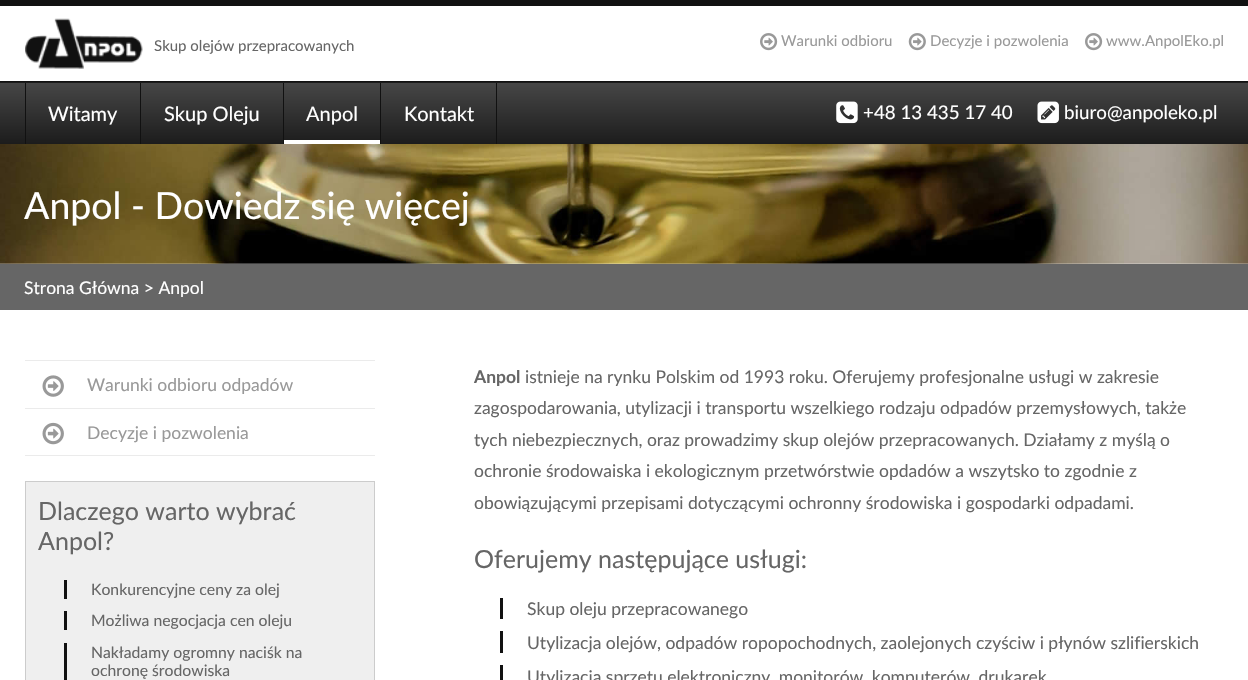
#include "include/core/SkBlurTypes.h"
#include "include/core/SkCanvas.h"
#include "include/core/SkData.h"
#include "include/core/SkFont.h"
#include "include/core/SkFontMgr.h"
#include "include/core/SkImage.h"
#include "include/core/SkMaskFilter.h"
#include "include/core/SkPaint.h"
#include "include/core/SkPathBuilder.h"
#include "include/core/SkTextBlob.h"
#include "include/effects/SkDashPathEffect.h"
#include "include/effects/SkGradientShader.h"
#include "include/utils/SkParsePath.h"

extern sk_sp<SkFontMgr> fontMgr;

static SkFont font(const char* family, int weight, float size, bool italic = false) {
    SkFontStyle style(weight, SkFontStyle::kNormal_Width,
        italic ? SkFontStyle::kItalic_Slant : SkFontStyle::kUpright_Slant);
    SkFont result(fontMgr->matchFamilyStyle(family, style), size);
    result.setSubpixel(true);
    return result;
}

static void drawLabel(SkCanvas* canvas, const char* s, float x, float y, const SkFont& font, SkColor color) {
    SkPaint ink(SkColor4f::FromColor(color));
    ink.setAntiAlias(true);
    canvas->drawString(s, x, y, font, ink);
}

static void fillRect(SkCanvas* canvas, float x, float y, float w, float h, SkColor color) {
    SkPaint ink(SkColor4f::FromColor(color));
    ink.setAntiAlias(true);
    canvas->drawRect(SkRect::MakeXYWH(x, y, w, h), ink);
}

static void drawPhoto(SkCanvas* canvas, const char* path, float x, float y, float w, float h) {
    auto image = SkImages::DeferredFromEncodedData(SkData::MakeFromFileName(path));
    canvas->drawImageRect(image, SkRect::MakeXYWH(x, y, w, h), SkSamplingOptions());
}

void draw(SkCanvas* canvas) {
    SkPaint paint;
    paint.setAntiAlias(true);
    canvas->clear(0xFFFFFFFF);
    fillRect(canvas, 0, 0, 1248, 6, 0xFF111111);
    drawPhoto(canvas, "assets/img1.png", 25, 18, 118, 51);
    SkFont font1 = font("Lato", 400, 15);
    drawLabel(canvas, "Skup olejów przepracowanych", 154, 51, font1, 0xFF666666);
    drawPhoto(canvas, "assets/img2.png", 760, 33, 18, 18);
    drawLabel(canvas, "Warunki odbioru", 781, 46, font1, 0xFF999999);
    drawPhoto(canvas, "assets/img3.png", 908, 33, 18, 18);
    drawLabel(canvas, "Decyzje i pozwolenia", 930, 46, font1, 0xFF999999);
    drawPhoto(canvas, "assets/img2.png", 1085, 33, 18, 18);
    drawLabel(canvas, "www.AnpolEko.pl", 1106, 46, font1, 0xFF999999);
    {
        const SkColor colors[] = {0xFF474747, 0xFF1C1C1C};
        const float stops[] = {0, 1};
        const SkPoint ends[] = {{624, 21}, {624, 83}};
        paint.setShader(SkGradientShader::MakeLinear(ends, colors, stops, 2, SkTileMode::kClamp));
        paint.setAlpha(255);
    }
    canvas->drawRect(SkRect::MakeXYWH(0, 82, 1248, 1), paint);
    {
        const SkColor colors[] = {0xFF474747, 0xFF1C1C1C};
        const float stops[] = {0, 1};
        const SkPoint ends[] = {{624, 82}, {624, 144}};
        paint.setShader(SkGradientShader::MakeLinear(ends, colors, stops, 2, SkTileMode::kClamp));
        paint.setAlpha(255);
    }
    canvas->drawRect(SkRect::MakeXYWH(0, 83, 1248, 61), paint);
    fillRect(canvas, 0, 81, 1248, 1, 0xFF111111);
    fillRect(canvas, 140, 83, 1, 61, 0xFF111111);
    fillRect(canvas, 25, 83, 1, 61, 0xFF111111);
    SkFont font2 = font("Lato", 400, 20);
    drawLabel(canvas, "Witamy", 48, 121, font2, 0xFFFFFFFF);
    fillRect(canvas, 283, 83, 1, 61, 0xFF111111);
    drawLabel(canvas, "Skup Oleju", 164, 121, font2, 0xFFFFFFFF);
    fillRect(canvas, 380, 83, 1, 61, 0xFF111111);
    fillRect(canvas, 284, 140, 96, 4, 0xFFFFFFFF);
    drawLabel(canvas, "Anpol", 306, 121, font2, 0xFFFFFFFF);
    fillRect(canvas, 496, 83, 1, 61, 0xFF111111);
    drawLabel(canvas, "Kontakt", 404, 121, font2, 0xFFFFFFFF);
    drawPhoto(canvas, "assets/img4.png", 836, 101, 22, 23);
    SkFont font3 = font("Lato", 400, 18.75f);
    drawLabel(canvas, "+48 13 435 17 40", 863, 119, font3, 0xFFFFFFFF);
    drawPhoto(canvas, "assets/img5.png", 1037, 101, 22, 23);
    drawLabel(canvas, "biuro@anpoleko.pl", 1064, 119, font3, 0xFFFFFFFF);
    drawPhoto(canvas, "assets/img6.png", 0, 144, 1248, 120);
    SkFont font4 = font("Lato", 400, 37.5f);
    drawLabel(canvas, "Anpol - Dowiedz się więcej", 24, 219, font4, 0xFFFFFFFF);
    fillRect(canvas, 0, 264, 1248, 46, 0xFF666666);
    SkFont font5 = font("Lato", 400, 17.5f);
    drawLabel(canvas, "Strona Główna > Anpol", 24, 294, font5, 0xFFFFFFFF);
    fillRect(canvas, 25, 360, 350, 1, 0xFFEBEBEB);
    fillRect(canvas, 25, 408, 350, 1, 0xFFEBEBEB);
    drawPhoto(canvas, "assets/img7.png", 42, 375, 22, 22);
    drawLabel(canvas, "Warunki odbioru odpadów", 87, 391, font5, 0xFF999999);
    fillRect(canvas, 25, 455, 350, 1, 0xFFEBEBEB);
    drawPhoto(canvas, "assets/img8.png", 42, 422, 22, 23);
    drawLabel(canvas, "Decyzje i pozwolenia", 87, 439, font5, 0xFF999999);
    paint.setShader(nullptr);
    paint.setColor(0xFFEFEFEF);
    canvas->drawRect(SkRect::MakeXYWH(25.5f, 481.5f, 349, 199), paint);
    paint.setStroke(true);
    paint.setStrokeWidth(1);
    paint.setColor(0xFFCCCCCC);
    canvas->drawRect(SkRect::MakeXYWH(25.5f, 481.5f, 349, 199), paint);
    SkFont font6 = font("Lato", 400, 25);
    drawLabel(canvas, "Dlaczego warto wybrać", 38, 520, font6, 0xFF666666);
    drawLabel(canvas, "Anpol?", 38, 550, font6, 0xFF666666);
    fillRect(canvas, 64, 580, 3, 19, 0xFF111111);
    SkFont font7 = font("Lato", 400, 15.75f);
    drawLabel(canvas, "Konkurencyjne ceny za olej", 91, 595, font7, 0xFF666666);
    fillRect(canvas, 64, 611, 3, 19, 0xFF111111);
    drawLabel(canvas, "Możliwa negocjacja cen oleju", 91, 626, font7, 0xFF666666);
    fillRect(canvas, 64, 643, 3, 37, 0xFF111111);
    drawLabel(canvas, "Nakładamy ogromny naciśk na", 91, 658, font7, 0xFF666666);
    drawLabel(canvas, "ochronę środowiska", 91, 676, font7, 0xFF666666);
    SkFont font8 = font("Lato", 700, 17.5f);
    drawLabel(canvas, "Anpol", 474, 383, font8, 0xFF666666);
    drawLabel(canvas, "istnieje na rynku Polskim od 1993 roku. Oferujemy profesjonalne usługi w zakresie", 525, 383, font5, 0xFF666666);
    drawLabel(canvas, "zagospodarowania, utylizacji i transportu wszelkiego rodzaju odpadów przemysłowych, także", 474, 414, font5, 0xFF666666);
    drawLabel(canvas, "tych niebezpiecznych, oraz prowadzimy skup olejów przepracowanych. Działamy z myślą o", 474, 446, font5, 0xFF666666);
    drawLabel(canvas, "ochronie środowaiska i ekologicznym przetwórstwie opdadów a wszytsko to zgodnie z", 474, 477, font5, 0xFF666666);
    drawLabel(canvas, "obowiązującymi przepisami dotyczącymi ochronny środowiska i gospodarki odpadami.", 474, 509, font5, 0xFF666666);
    drawLabel(canvas, "Oferujemy następujące usługi:", 474, 568, font6, 0xFF666666);
    fillRect(canvas, 500, 598, 3, 21, 0xFF111111);
    drawLabel(canvas, "Skup oleju przepracowanego", 527, 615, font5, 0xFF666666);
    fillRect(canvas, 500, 631, 3, 22, 0xFF111111);
    drawLabel(canvas, "Utylizacja olejów, odpadów ropopochodnych, zaolejonych czyściw i płynów szlifierskich", 527, 649, font5, 0xFF666666);
    fillRect(canvas, 500, 665, 3, 15, 0xFF111111);
    drawLabel(canvas, "Utylizacja sprzętu elektroniczny, monitorów, komputerów, drukarek", 527, 683, font5, 0xFF666666);
}
